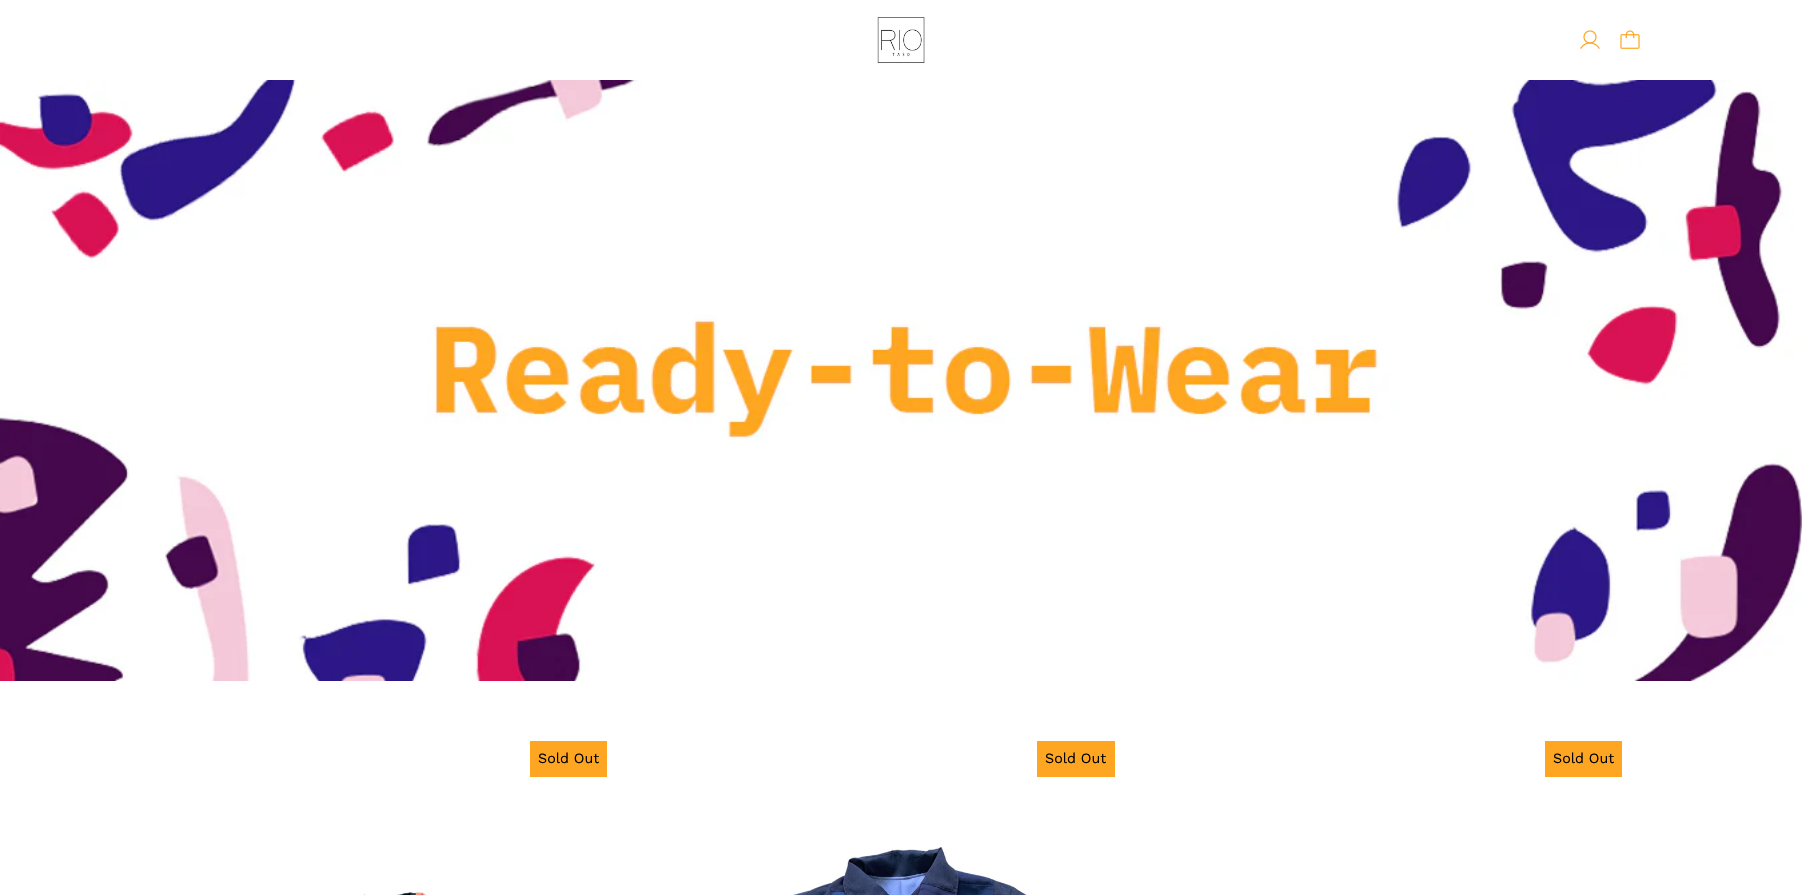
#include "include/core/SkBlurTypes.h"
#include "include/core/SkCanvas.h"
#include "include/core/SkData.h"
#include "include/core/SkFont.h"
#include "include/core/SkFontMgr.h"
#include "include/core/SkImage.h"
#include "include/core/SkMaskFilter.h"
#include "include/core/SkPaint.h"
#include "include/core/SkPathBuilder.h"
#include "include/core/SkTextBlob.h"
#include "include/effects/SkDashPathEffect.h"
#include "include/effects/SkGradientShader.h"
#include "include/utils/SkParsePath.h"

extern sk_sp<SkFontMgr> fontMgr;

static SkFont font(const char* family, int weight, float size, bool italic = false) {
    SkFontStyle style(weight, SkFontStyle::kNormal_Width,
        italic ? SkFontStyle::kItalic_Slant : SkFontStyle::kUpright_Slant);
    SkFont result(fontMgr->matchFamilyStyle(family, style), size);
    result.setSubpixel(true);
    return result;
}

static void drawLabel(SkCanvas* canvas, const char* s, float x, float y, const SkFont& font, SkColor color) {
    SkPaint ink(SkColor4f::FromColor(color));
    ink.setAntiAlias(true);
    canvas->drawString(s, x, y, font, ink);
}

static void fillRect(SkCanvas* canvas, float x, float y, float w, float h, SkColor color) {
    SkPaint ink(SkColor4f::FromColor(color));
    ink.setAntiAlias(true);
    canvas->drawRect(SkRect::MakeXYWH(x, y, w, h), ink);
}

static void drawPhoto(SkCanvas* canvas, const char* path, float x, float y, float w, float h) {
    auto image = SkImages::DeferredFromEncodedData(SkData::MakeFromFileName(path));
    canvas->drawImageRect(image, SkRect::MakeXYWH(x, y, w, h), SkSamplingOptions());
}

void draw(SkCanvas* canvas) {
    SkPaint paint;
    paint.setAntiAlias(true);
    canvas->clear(0xFFFFFFFF);
    drawPhoto(canvas, "assets/img1.png", 877, 17, 48, 46);
    drawPhoto(canvas, "assets/img2.png", 1580, 30, 20, 19);
    drawPhoto(canvas, "assets/img3.png", 1620, 30, 20, 19);
    drawPhoto(canvas, "assets/img4.png", 0, 80, 1802, 601);
    fillRect(canvas, 530, 741, 77, 36, 0xFFFEA621);
    SkFont font1 = font("Work Sans", 400, 14.25f);
    drawLabel(canvas, "Sold Out", 538, 763, font1, 0xFF000000);
    drawPhoto(canvas, "assets/img5.png", 364, 891, 65, 4);
    fillRect(canvas, 1037, 741, 78, 36, 0xFFFEA621);
    drawLabel(canvas, "Sold Out", 1045, 763, font1, 0xFF000000);
    drawPhoto(canvas, "assets/img6.png", 790, 847, 239, 48);
    fillRect(canvas, 1545, 741, 77, 36, 0xFFFEA621);
    drawLabel(canvas, "Sold Out", 1553, 763, font1, 0xFF000000);
}
